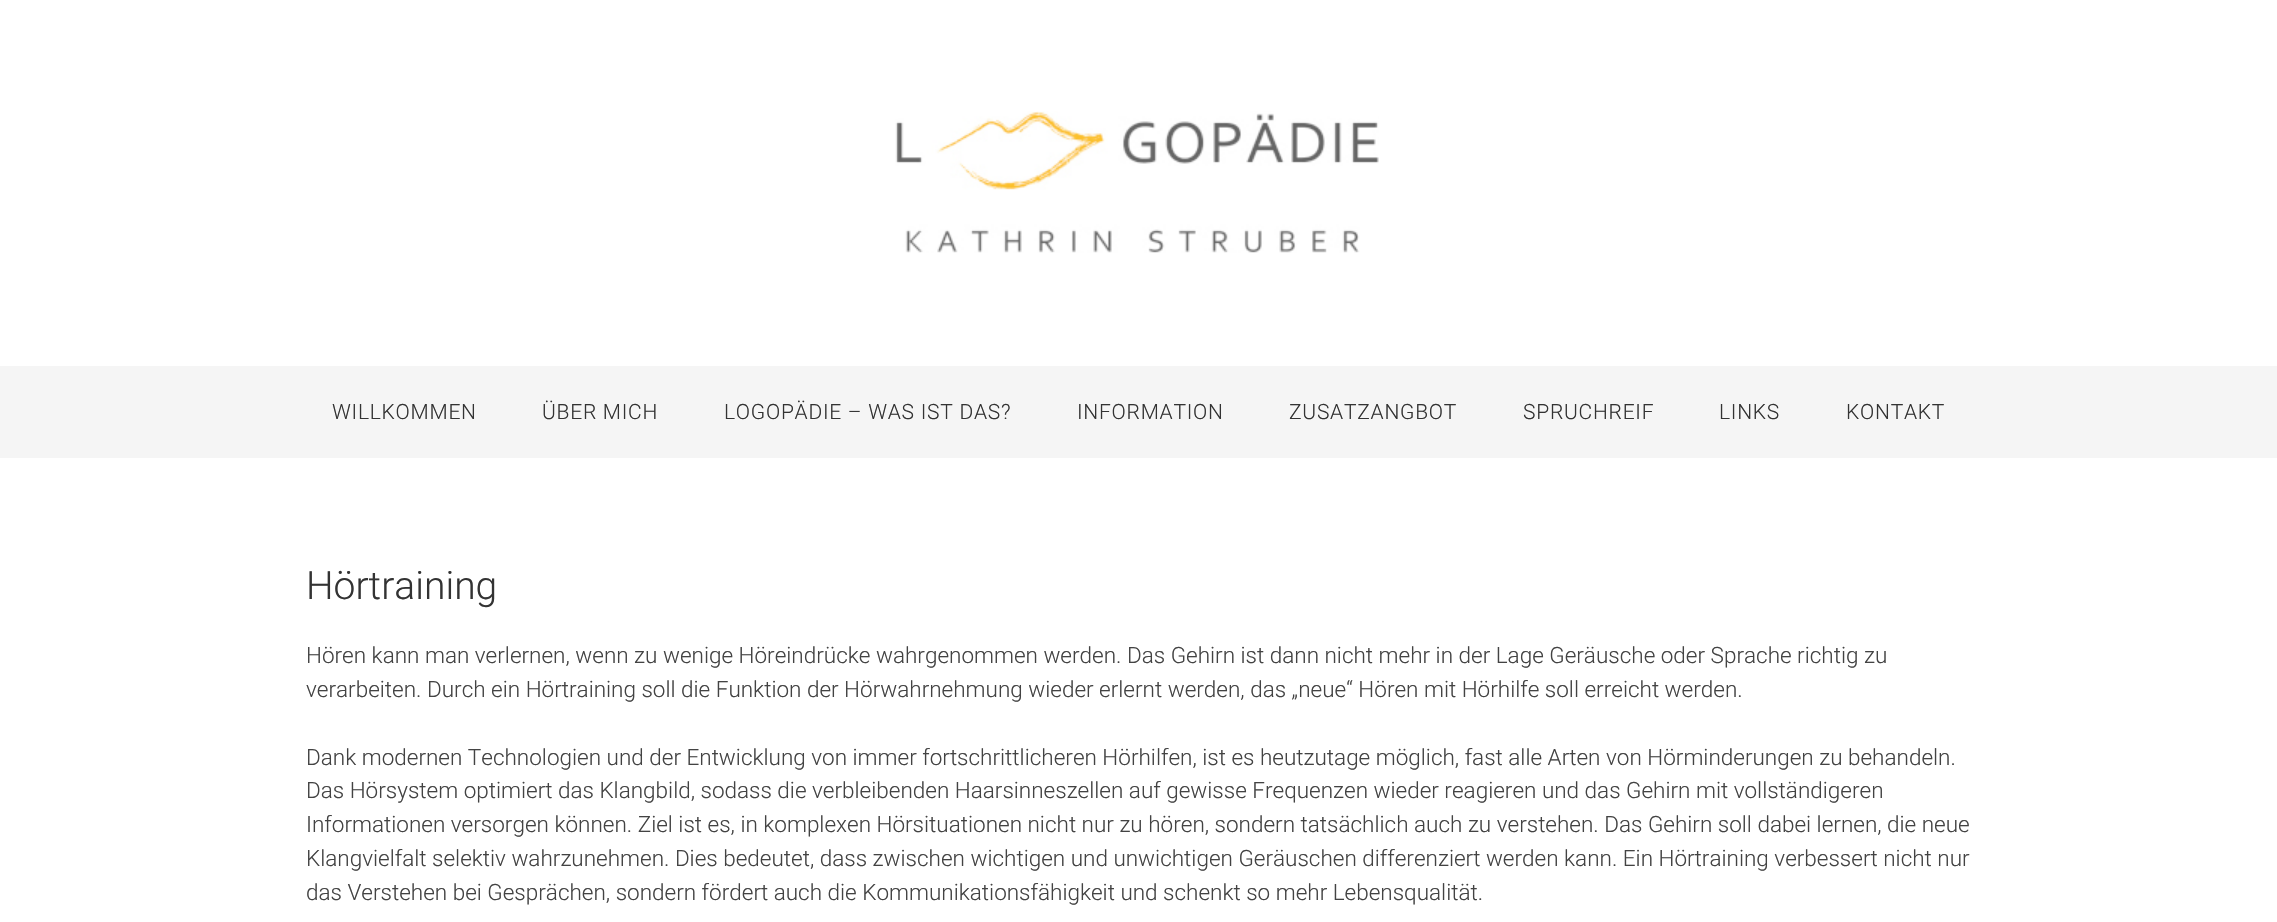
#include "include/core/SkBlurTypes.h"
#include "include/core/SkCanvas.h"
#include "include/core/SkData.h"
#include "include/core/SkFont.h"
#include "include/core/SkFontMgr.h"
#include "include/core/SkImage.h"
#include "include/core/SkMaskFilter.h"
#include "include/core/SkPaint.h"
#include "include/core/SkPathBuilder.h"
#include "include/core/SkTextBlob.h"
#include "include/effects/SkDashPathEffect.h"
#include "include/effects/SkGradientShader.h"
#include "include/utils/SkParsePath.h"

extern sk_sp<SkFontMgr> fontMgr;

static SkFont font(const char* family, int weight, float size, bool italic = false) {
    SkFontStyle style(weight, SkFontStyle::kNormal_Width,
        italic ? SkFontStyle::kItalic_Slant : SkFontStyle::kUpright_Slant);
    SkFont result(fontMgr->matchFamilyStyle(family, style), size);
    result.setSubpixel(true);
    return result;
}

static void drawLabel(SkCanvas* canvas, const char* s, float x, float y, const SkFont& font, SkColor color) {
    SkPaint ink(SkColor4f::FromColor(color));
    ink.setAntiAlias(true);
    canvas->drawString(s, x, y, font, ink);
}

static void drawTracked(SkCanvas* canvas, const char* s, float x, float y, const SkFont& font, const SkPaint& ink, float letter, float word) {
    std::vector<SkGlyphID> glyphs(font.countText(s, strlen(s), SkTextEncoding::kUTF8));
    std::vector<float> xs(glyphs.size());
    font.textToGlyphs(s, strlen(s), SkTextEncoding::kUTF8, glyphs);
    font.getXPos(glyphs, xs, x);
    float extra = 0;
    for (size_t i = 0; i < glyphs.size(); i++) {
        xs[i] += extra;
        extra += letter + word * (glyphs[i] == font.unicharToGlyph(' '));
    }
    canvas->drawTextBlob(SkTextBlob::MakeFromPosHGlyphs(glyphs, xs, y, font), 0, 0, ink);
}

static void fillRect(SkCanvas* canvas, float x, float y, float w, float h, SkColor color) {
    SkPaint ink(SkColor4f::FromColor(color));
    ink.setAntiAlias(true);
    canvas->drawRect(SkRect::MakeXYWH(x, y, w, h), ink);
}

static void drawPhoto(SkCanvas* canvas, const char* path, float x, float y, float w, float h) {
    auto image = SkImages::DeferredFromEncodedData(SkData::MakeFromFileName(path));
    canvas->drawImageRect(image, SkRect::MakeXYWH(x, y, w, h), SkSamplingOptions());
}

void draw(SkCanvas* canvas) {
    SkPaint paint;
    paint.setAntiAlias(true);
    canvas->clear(0xFFFFFFFF);
    drawPhoto(canvas, "assets/img1.png", 895, 111, 484, 142);
    fillRect(canvas, 0, 366, 2277, 92, 0xFFF5F5F5);
    SkFont font1 = font("Roboto", 300, 21);
    paint.setColor(0xFF333333);
    drawTracked(canvas, "WILLKOMMEN", 332, 419, font1, paint, 0.75f, 0);
    drawTracked(canvas, "ÜBER MICH", 542, 419, font1, paint, 0.75f, 0);
    drawTracked(canvas, "LOGOPÄDIE – WAS IST DAS?", 724, 419, font1, paint, 0.75f, 0);
    drawTracked(canvas, "INFORMATION", 1077, 419, font1, paint, 0.75f, 0);
    drawTracked(canvas, "ZUSATZANGBOT", 1289, 419, font1, paint, 0.75f, 0);
    drawTracked(canvas, "SPRUCHREIF", 1523, 419, font1, paint, 0.75f, 0);
    drawTracked(canvas, "LINKS", 1719, 419, font1, paint, 0.75f, 0);
    drawTracked(canvas, "KONTAKT", 1846, 419, font1, paint, 0.75f, 0);
    SkFont font2 = font("Roboto", 300, 39);
    drawLabel(canvas, "Hörtraining", 306, 599, font2, 0xFF333333);
    SkFont font3 = font("Roboto", 300, 22.5f);
    drawLabel(canvas, "Hören kann man verlernen, wenn zu wenige Höreindrücke wahrgenommen werden. Das Gehirn ist dann nicht mehr in der Lage Geräusche oder Sprache richtig zu", 306, 663, font3, 0xFF434343);
    drawLabel(canvas, "verarbeiten. Durch ein Hörtraining soll die Funktion der Hörwahrnehmung wieder erlernt werden, das „neue“ Hören mit Hörhilfe soll erreicht werden.", 306, 697, font3, 0xFF434343);
    drawLabel(canvas, "Dank modernen Technologien und der Entwicklung von immer fortschrittlicheren Hörhilfen, ist es heutzutage möglich, fast alle Arten von Hörminderungen zu behandeln.", 306, 765, font3, 0xFF434343);
    drawLabel(canvas, "Das Hörsystem optimiert das Klangbild, sodass die verbleibenden Haarsinneszellen auf gewisse Frequenzen wieder reagieren und das Gehirn mit vollständigeren", 306, 798, font3, 0xFF434343);
    drawLabel(canvas, "Informationen versorgen können. Ziel ist es, in komplexen Hörsituationen nicht nur zu hören, sondern tatsächlich auch zu verstehen. Das Gehirn soll dabei lernen, die neue", 306, 832, font3, 0xFF434343);
    drawLabel(canvas, "Klangvielfalt selektiv wahrzunehmen. Dies bedeutet, dass zwischen wichtigen und unwichtigen Geräuschen differenziert werden kann. Ein Hörtraining verbessert nicht nur", 306, 866, font3, 0xFF434343);
    drawLabel(canvas, "das Verstehen bei Gesprächen, sondern fördert auch die Kommunikationsfähigkeit und schenkt so mehr Lebensqualität.", 306, 900, font3, 0xFF434343);
}
